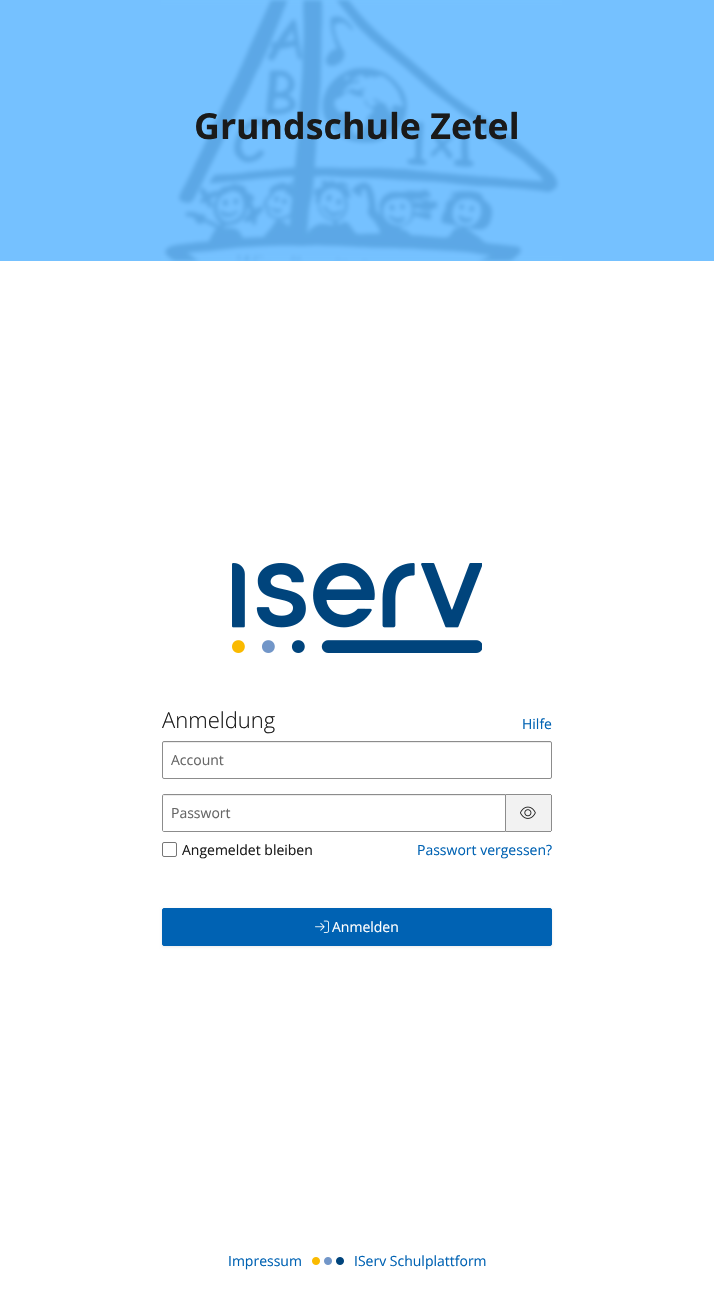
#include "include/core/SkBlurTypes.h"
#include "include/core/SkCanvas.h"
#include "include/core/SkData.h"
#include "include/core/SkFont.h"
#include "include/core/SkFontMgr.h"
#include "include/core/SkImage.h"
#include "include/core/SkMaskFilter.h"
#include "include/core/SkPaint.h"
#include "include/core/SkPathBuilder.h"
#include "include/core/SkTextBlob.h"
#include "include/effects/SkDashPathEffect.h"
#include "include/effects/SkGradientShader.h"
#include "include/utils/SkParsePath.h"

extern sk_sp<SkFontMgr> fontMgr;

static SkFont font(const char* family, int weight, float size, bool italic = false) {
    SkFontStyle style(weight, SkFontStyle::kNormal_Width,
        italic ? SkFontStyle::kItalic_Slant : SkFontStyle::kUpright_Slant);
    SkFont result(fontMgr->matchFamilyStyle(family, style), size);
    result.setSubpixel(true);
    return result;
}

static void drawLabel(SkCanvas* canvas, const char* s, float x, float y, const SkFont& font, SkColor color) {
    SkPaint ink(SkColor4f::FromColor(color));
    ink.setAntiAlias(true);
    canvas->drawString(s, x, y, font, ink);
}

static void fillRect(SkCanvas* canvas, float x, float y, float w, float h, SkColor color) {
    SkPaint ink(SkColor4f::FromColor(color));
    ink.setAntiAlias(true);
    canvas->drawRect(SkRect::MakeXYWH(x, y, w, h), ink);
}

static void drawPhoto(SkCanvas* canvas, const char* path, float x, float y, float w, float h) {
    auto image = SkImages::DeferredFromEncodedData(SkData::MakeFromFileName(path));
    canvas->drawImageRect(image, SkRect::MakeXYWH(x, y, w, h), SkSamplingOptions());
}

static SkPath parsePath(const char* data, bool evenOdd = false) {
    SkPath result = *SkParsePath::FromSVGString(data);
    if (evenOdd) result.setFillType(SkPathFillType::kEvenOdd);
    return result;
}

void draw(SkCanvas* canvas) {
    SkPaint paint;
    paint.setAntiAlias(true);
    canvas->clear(0xFF75C1FF);
    drawPhoto(canvas, "assets/img1.png", 161, 0, 401, 261);
    SkFont font1 = font("Open Sans", 700, 35.75f);
    drawLabel(canvas, "Grundschule Zetel", 194, 139, font1, 0xFF1A1A1A);
    fillRect(canvas, 0, 261, 714, 1042, 0xFFFFFFFF);
    drawPhoto(canvas, "assets/img2.png", 232, 563, 250, 90);
    SkFont font2 = font("Open Sans", 300, 22);
    drawLabel(canvas, "Anmeldung", 162, 728, font2, 0xFF1A1A1A);
    SkFont font3 = font("Open Sans", 400, 14);
    drawLabel(canvas, "Hilfe", 522, 729, font3, 0xFF0062B3);
    paint.setColor(0xFFECECEC);
    canvas->drawPath(parsePath("M164 743H550H551V744C551 743 551 742 550 742H164L163 743V744C163 743 163 743 164 743Z"), paint);
    paint.setStroke(true);
    paint.setStrokeWidth(1);
    paint.setColor(0xFF8C8C8C);
    canvas->drawRoundRect(SkRect::MakeXYWH(162.5f, 741.5f, 389, 37), 1.5f, 1.5f, paint);
    drawLabel(canvas, "Account", 171, 765, font3, 0xFF666666);
    paint.setStroke(false);
    paint.setColor(0xFFECECEC);
    canvas->drawPath(parsePath("M164 796H505V795H164C163 795 163 796 163 797Z"), paint);
    paint.setStroke(true);
    paint.setColor(0xFF8C8C8C);
    canvas->drawPath(parsePath("M164 794.5H505.5V831.5H164C163 831.5 162.5 831 162.5 830V796C162.5 795 163 794.5 164 794.5Z"), paint);
    drawLabel(canvas, "Passwort", 171, 818, font3, 0xFF666666);
    paint.setStroke(false);
    paint.setColor(0xFFF2F2F2);
    canvas->drawPath(parsePath("M506 794H550C551 794 552 795 552 796V830C552 831 551 832 550 832H506Z"), paint);
    fillRect(canvas, 506, 794, 45, 1, 0xFF8C8C8C);
    fillRect(canvas, 551, 795, 1, 36, 0xFF8C8C8C);
    fillRect(canvas, 506, 831, 45, 1, 0xFF8C8C8C);
    drawPhoto(canvas, "assets/img3.png", 520, 806, 16, 13);
    paint.setStroke(true);
    paint.setColor(0xFF767676);
    canvas->drawRoundRect(SkRect::MakeXYWH(162.5f, 842.5f, 14, 14), 1.5f, 1.5f, paint);
    drawLabel(canvas, "Angemeldet bleiben", 182, 855, font3, 0xFF1A1A1A);
    drawLabel(canvas, "Passwort vergessen?", 417, 855, font3, 0xFF0062B3);
    paint.setStroke(false);
    paint.setColor(0x14000000);
    paint.setMaskFilter(SkMaskFilter::MakeBlur(kNormal_SkBlurStyle, 1.5f));
    canvas->drawRoundRect(SkRect::MakeXYWH(162, 909, 390, 38), 2, 2, paint);
    paint.setMaskFilter(nullptr);
    paint.setColor(0xFF0062B3);
    canvas->drawRoundRect(SkRect::MakeXYWH(162.5f, 908.5f, 389, 37), 1.5f, 1.5f, paint);
    paint.setStroke(true);
    canvas->drawRoundRect(SkRect::MakeXYWH(162.5f, 908.5f, 389, 37), 1.5f, 1.5f, paint);
    drawPhoto(canvas, "assets/img4.png", 315, 920, 14, 13);
    drawLabel(canvas, "Anmelden", 332, 932, font3, 0xFFFFFFFF);
    drawLabel(canvas, "Impressum", 228, 1266, font3, 0xFF0062B3);
    drawPhoto(canvas, "assets/img5.png", 312, 1257, 8, 8);
    drawPhoto(canvas, "assets/img6.png", 324, 1257, 8, 8);
    drawPhoto(canvas, "assets/img7.png", 336, 1257, 8, 8);
    drawLabel(canvas, "IServ Schulplattform", 354, 1266, font3, 0xFF0062B3);
}
